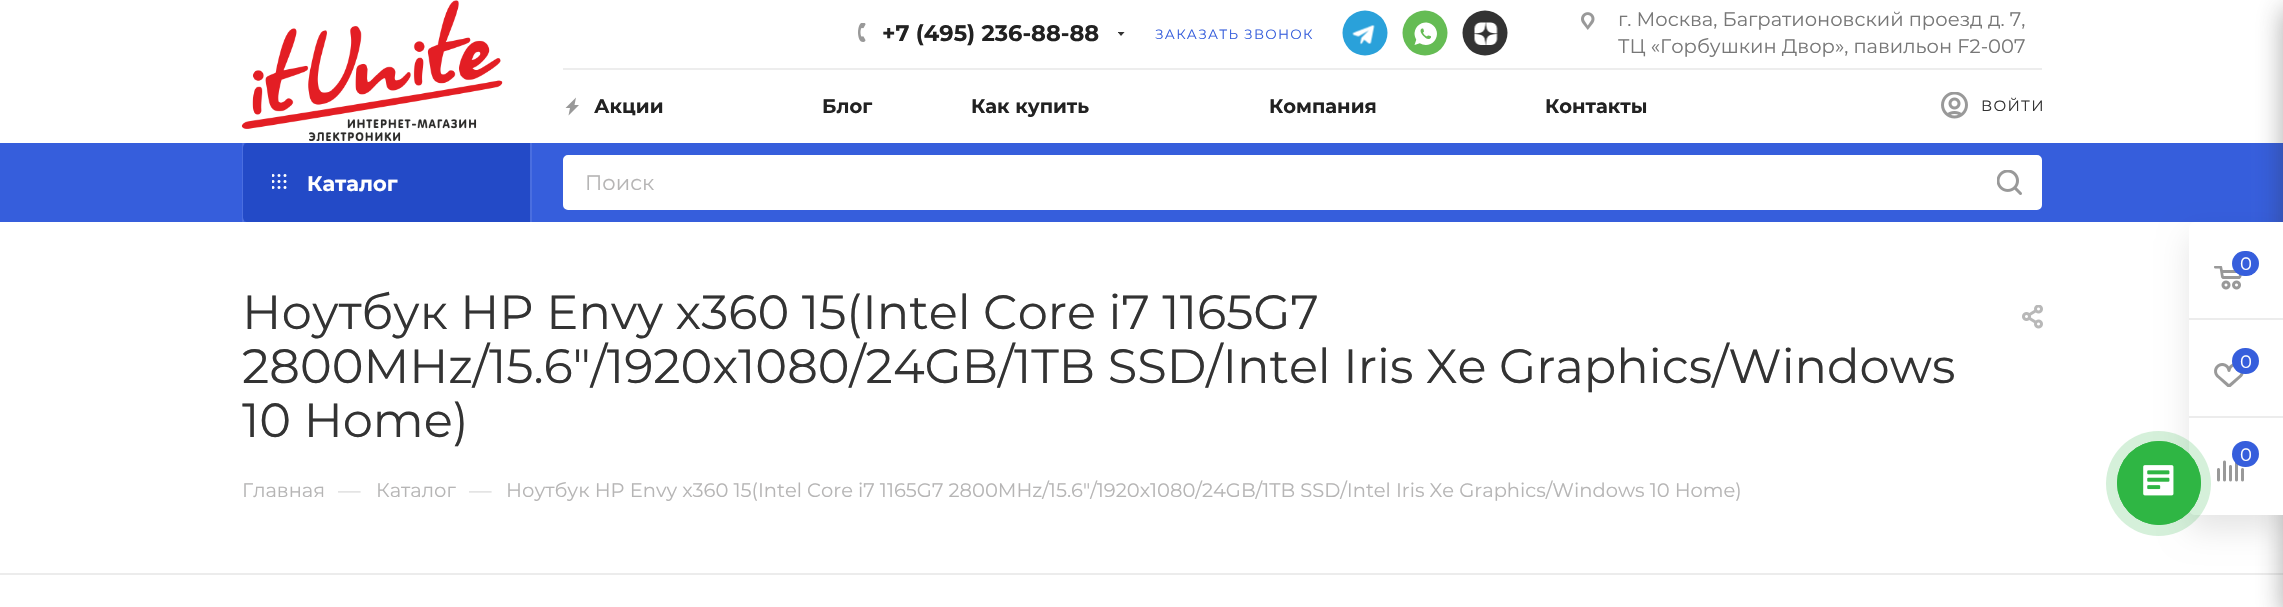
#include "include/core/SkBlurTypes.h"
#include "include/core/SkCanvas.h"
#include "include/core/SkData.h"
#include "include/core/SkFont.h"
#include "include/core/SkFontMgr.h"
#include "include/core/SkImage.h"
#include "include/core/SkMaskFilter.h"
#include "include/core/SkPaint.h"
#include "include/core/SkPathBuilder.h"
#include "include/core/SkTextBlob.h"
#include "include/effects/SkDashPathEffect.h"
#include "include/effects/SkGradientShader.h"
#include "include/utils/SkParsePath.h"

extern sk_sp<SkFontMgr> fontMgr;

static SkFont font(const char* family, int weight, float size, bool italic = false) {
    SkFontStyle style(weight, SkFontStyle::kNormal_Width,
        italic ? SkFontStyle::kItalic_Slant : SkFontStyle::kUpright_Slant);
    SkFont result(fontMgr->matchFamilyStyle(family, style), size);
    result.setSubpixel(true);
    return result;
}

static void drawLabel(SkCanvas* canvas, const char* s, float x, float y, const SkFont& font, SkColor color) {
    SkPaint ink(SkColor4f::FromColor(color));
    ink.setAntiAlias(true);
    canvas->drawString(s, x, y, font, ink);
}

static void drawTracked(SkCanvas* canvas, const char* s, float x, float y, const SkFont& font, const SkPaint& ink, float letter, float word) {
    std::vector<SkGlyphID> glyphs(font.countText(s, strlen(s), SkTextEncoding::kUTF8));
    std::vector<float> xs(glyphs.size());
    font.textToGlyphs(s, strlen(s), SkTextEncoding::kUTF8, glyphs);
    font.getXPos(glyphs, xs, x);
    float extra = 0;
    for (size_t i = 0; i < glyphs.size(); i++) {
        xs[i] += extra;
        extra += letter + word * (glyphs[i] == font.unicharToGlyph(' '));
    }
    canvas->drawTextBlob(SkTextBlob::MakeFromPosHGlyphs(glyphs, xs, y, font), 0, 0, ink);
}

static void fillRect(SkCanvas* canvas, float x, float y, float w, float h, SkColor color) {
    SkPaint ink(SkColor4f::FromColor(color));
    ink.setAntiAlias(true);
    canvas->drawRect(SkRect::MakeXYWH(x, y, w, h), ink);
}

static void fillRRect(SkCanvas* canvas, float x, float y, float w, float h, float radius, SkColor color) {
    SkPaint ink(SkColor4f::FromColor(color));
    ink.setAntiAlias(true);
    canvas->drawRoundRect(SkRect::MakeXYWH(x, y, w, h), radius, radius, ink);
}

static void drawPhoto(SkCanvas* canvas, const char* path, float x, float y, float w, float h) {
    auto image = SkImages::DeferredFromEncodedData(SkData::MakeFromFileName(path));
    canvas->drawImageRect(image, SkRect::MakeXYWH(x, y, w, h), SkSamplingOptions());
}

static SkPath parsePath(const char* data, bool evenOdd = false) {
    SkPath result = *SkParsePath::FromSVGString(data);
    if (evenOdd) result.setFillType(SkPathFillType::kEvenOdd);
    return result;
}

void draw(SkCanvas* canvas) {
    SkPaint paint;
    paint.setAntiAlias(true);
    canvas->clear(0xFFFFFFFF);
    drawPhoto(canvas, "assets/img1.png", 241, 0, 262, 141);
    drawPhoto(canvas, "assets/img2.png", 858, 23, 8, 19);
    SkFont font1 = font("Montserrat", 700, 22.5f);
    drawLabel(canvas, "+7 (495) 236-88-88", 882, 41, font1, 0xFF222222);
    canvas->save();
    canvas->clipRect(SkRect::MakeXYWH(1118, 32, 7, 5));
    paint.setColor(0xFF333333);
    canvas->drawPath(parsePath("M1117.5 31.5H1125L1121 36Z", true), paint);
    canvas->restore();
    SkFont font2 = font("Montserrat", 400, 13.5f);
    paint.setColor(0xFF365EDC);
    drawTracked(canvas, "ЗАКАЗАТЬ ЗВОНОК", 1155, 39, font2, paint, 1.25f, 0);
    drawPhoto(canvas, "assets/img3.png", 1342, 10, 46, 46);
    drawPhoto(canvas, "assets/img4.png", 1402, 10, 46, 46);
    drawPhoto(canvas, "assets/img5.png", 1462, 10, 46, 46);
    drawPhoto(canvas, "assets/img6.png", 1581, 12, 14, 18);
    SkFont font3 = font("Montserrat", 400, 19.5f);
    drawLabel(canvas, "г. Москва, Багратионовский проезд д. 7,", 1618, 26, font3, 0xFF777777);
    drawLabel(canvas, "ТЦ «Горбушкин Двор», павильон F2-007", 1618, 53, font3, 0xFF777777);
    fillRect(canvas, 563, 68, 1479, 2, 0xFFEDEDED);
    paint.setColor(0xFF999999);
    canvas->drawPath(parsePath("M576 97.5L565.5 108H570L568.5 115.5L579 105H574.5Z", true), paint);
    SkFont font4 = font("Montserrat", 700, 19.5f);
    drawLabel(canvas, "Акции", 594, 113, font4, 0xFF222222);
    drawLabel(canvas, "Блог", 822, 113, font4, 0xFF222222);
    drawLabel(canvas, "Как купить", 971, 113, font4, 0xFF222222);
    drawLabel(canvas, "Компания", 1269, 113, font4, 0xFF222222);
    drawLabel(canvas, "Контакты", 1545, 113, font4, 0xFF222222);
    drawPhoto(canvas, "assets/img7.png", 1941, 92, 27, 27);
    SkFont font5 = font("Montserrat", 400, 15);
    paint.setColor(0xFF333333);
    drawTracked(canvas, "ВОЙТИ", 1981, 111, font5, paint, 1.25f, 0);
    fillRect(canvas, 0, 143, 2283, 79, 0xFF365EDC);
    fillRect(canvas, 530, 143, 2, 79, 0xFF4A6EE0);
    fillRect(canvas, 242, 143, 2, 79, 0xFF4A6EE0);
    paint.setColor(0xFF234AC7);
    canvas->drawPath(parsePath("M248 143H530V222H248C245 222 243 220 243 217V148C243 145 245 143 248 143Z"), paint);
    drawPhoto(canvas, "assets/img8.png", 272, 174, 15, 15);
    SkFont font6 = font("Montserrat", 700, 21);
    drawLabel(canvas, "Каталог", 307, 191, font6, 0xFFFFFFFF);
    paint.setColor(0xFFFFFFFF);
    canvas->drawRoundRect(SkRect::MakeXYWH(564, 156, 1477, 53), 4, 4, paint);
    paint.setStroke(true);
    paint.setStrokeWidth(2);
    canvas->drawRoundRect(SkRect::MakeXYWH(564, 156, 1477, 53), 4, 4, paint);
    SkFont font7 = font("Montserrat", 400, 21);
    drawLabel(canvas, "Поиск", 585, 190, font7, 0xFFB6B5B5);
    drawPhoto(canvas, "assets/img9.png", 1997, 170, 25, 25);
    SkFont font8 = font("Montserrat", 400, 48);
    drawLabel(canvas, "Ноутбук HP Envy x360 15(Intel Core i7 1165G7", 242, 329, font8, 0xFF333333);
    drawLabel(canvas, "2800MHz/15.6\"/1920x1080/24GB/1TB SSD/Intel Iris Xe Graphics/Windows", 242, 383, font8, 0xFF333333);
    drawLabel(canvas, "10 Home)", 242, 437, font8, 0xFF333333);
    drawPhoto(canvas, "assets/img10.png", 2022, 305, 21, 24);
    drawLabel(canvas, "Главная", 242, 497, font3, 0xFFB6B5B5);
    SkFont font9 = font("Montserrat", 400, 22.5f);
    drawLabel(canvas, "—", 338, 498, font9, 0xFFDDDDDD);
    drawLabel(canvas, "Каталог", 376, 497, font3, 0xFFB6B5B5);
    drawLabel(canvas, "—", 469, 498, font9, 0xFFDDDDDD);
    drawLabel(canvas, "Ноутбук HP Envy x360 15(Intel Core i7 1165G7 2800MHz/15.6\"/1920x1080/24GB/1TB SSD/Intel Iris Xe Graphics/Windows 10 Home)", 506, 497, font3, 0xFFB6B5B5);
    fillRect(canvas, 0, 573, 2283, 2, 0xFFECECEC);
    paint.setStroke(false);
    paint.setColor(0x662C2C2C);
    paint.setMaskFilter(SkMaskFilter::MakeBlur(kNormal_SkBlurStyle, 13.5f));
    canvas->drawRoundRect(SkRect::MakeXYWH(2283, 9, 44, 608), 3, 3, paint);
    paint.setMaskFilter(nullptr);
    paint.setColor(0x1A000000);
    paint.setMaskFilter(SkMaskFilter::MakeBlur(kNormal_SkBlurStyle, 15));
    canvas->drawRoundRect(SkRect::MakeXYWH(2189, 237, 94, 293), 6, 6, paint);
    paint.setMaskFilter(nullptr);
    paint.setColor(0xFFFFFFFF);
    canvas->drawPath(parsePath("M2195 222H2283V515H2195C2191.5 515 2189 512.5 2189 509V228C2189 224.5 2191.5 222 2195 222Z"), paint);
    fillRect(canvas, 2189, 318, 94, 2, 0xFFECECEC);
    drawPhoto(canvas, "assets/img11.png", 2214, 266, 28, 24);
    fillRRect(canvas, 2232, 251, 27, 25, 12.5f, 0xFF365EDC);
    SkFont font10 = font("Montserrat", 400, 18);
    drawLabel(canvas, "0", 2240, 270, font10, 0xFFFFFFFF);
    fillRect(canvas, 2251, 252, 1, 23, 0xFF365EDC);
    fillRect(canvas, 2189, 416, 94, 2, 0xFFECECEC);
    drawPhoto(canvas, "assets/img12.png", 2214, 363, 30, 24);
    fillRRect(canvas, 2232, 348, 27, 26, 13, 0xFF365EDC);
    drawLabel(canvas, "0", 2240, 368, font10, 0xFFFFFFFF);
    drawPhoto(canvas, "assets/img13.png", 2217, 460, 27, 22);
    fillRRect(canvas, 2232, 441, 27, 26, 13, 0xFF365EDC);
    drawLabel(canvas, "0", 2240, 461, font10, 0xFFFFFFFF);
    paint.setColor(0x332FB644);
    canvas->drawCircle(2158.5f, 483.5f, 52.5f, paint);
    paint.setStroke(true);
    paint.setStrokeWidth(1);
    paint.setColor(0xFF2FB644);
    canvas->drawCircle(2159, 483, 41.5f, paint);
    paint.setStroke(false);
    canvas->drawCircle(2159, 483, 42, paint);
    drawPhoto(canvas, "assets/img14.png", 2143, 465, 31, 31);
}
